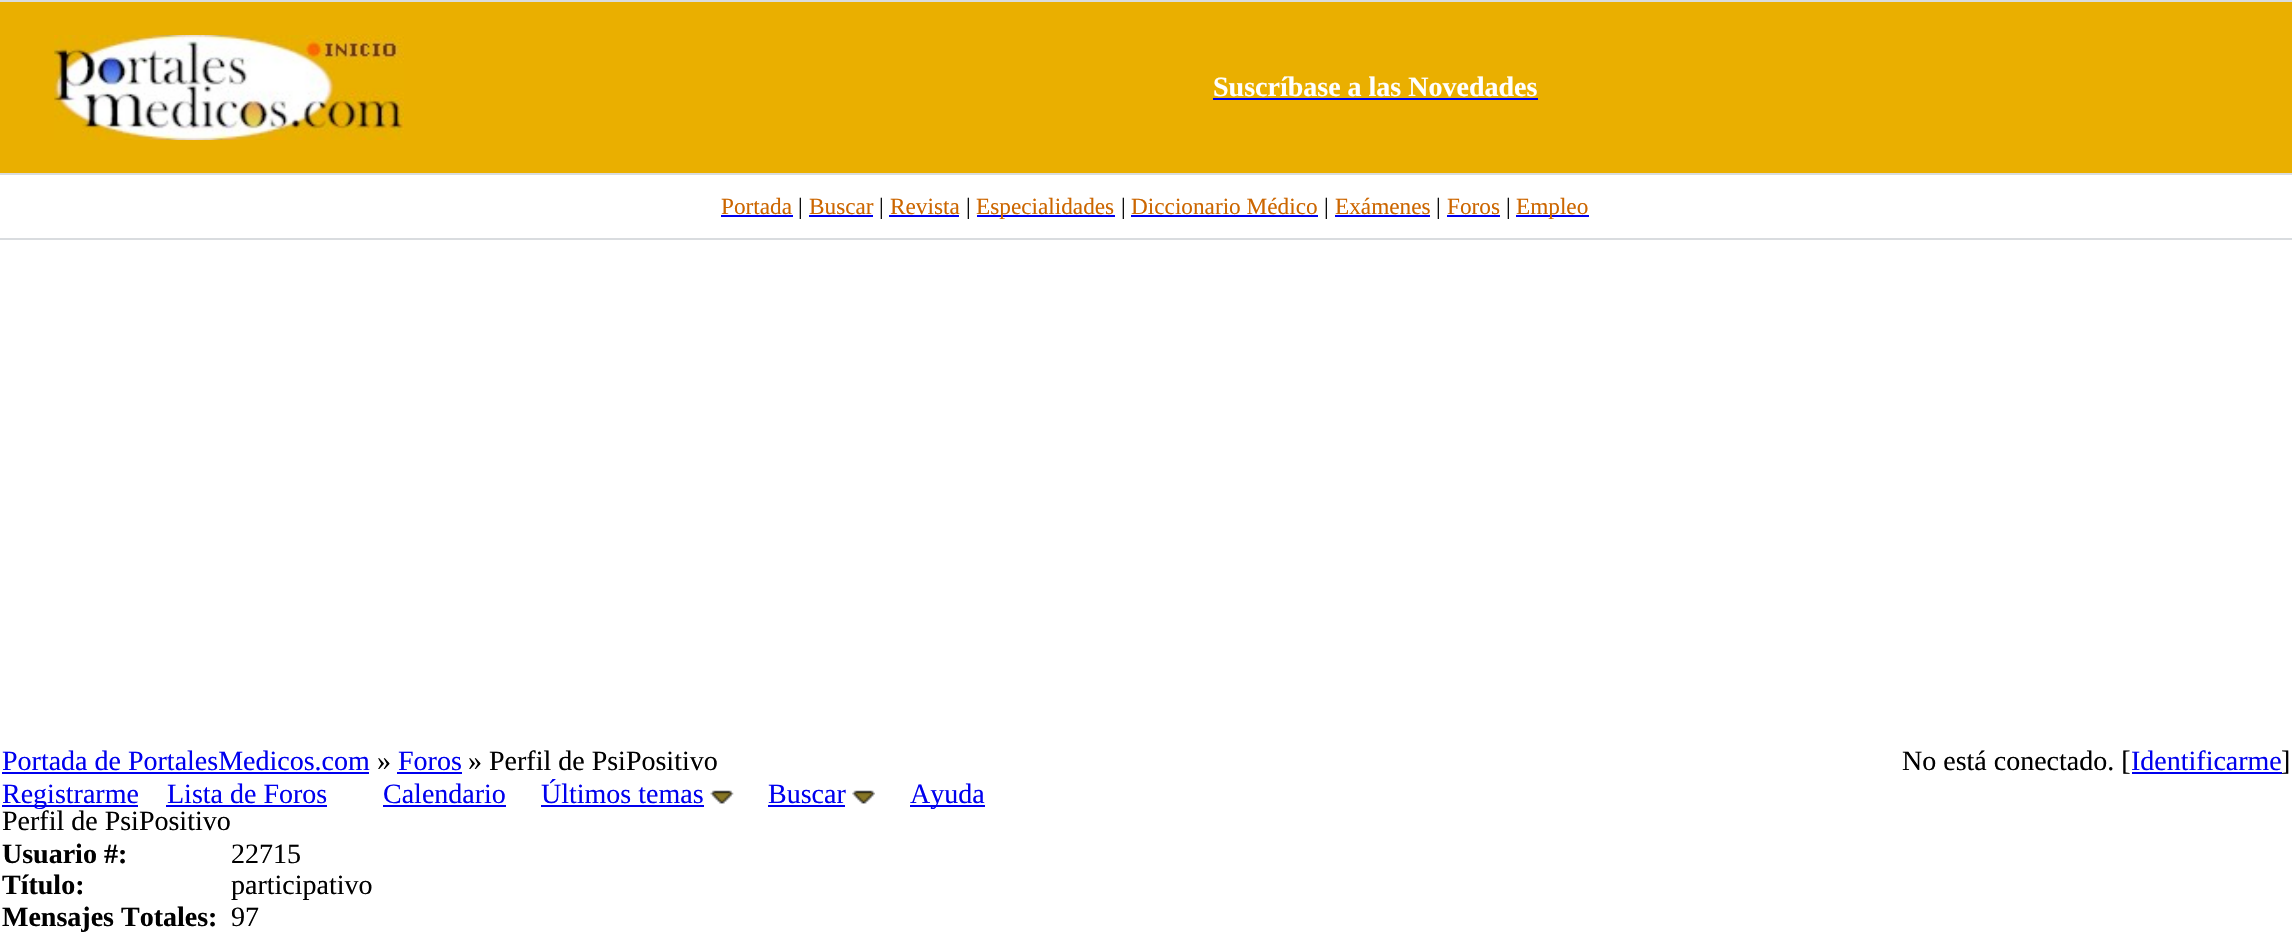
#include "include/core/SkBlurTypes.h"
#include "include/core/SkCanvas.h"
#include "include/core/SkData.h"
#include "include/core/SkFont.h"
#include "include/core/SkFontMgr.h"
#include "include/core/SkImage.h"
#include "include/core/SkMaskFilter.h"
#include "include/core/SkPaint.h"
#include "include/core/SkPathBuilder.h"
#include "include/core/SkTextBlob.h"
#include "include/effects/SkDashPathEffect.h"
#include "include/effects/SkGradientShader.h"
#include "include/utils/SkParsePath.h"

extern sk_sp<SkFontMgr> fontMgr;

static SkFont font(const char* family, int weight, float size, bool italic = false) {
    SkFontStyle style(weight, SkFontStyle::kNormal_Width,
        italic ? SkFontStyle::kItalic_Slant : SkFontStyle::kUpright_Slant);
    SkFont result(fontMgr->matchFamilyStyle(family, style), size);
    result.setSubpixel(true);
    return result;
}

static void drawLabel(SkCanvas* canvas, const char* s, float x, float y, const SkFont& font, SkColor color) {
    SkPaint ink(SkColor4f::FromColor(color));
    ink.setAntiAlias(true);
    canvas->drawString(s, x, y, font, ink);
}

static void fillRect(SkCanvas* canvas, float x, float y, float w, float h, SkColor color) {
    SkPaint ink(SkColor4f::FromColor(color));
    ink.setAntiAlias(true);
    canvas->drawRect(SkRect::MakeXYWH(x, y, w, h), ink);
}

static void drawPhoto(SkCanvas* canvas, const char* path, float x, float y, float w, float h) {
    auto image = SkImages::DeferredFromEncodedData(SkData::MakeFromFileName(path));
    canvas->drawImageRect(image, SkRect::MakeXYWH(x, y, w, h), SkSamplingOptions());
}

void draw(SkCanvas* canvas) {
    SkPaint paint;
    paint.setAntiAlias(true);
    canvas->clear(0xFFFFFFFF);
    fillRect(canvas, 0, 2, 2292, 171, 0xFFEAAF00);
    fillRect(canvas, 0, 0, 2292, 2, 0xFFD9DCDF);
    fillRect(canvas, 0, 173, 2292, 2, 0xFFD9DCDF);
    drawPhoto(canvas, "assets/img1.png", 54, 35, 350, 105);
    SkFont font1 = font("Liberation Serif", 700, 28);
    drawLabel(canvas, "Suscríbase a las Novedades", 1213, 96, font1, 0xFFFFFFFF);
    fillRect(canvas, 1213, 98, 325, 2, 0xFF0000EE);
    fillRect(canvas, 0, 238, 2292, 2, 0xFFD9DCDF);
    SkFont font2 = font("Liberation Serif", 400, 23.25f);
    drawLabel(canvas, "Portada", 721, 214, font2, 0xFFCC6600);
    fillRect(canvas, 721, 215, 72, 2, 0xFF0000EE);
    drawLabel(canvas, "|", 798, 214, font2, 0xFF000000);
    drawLabel(canvas, "Buscar", 809, 214, font2, 0xFFCC6600);
    fillRect(canvas, 809, 215, 64, 2, 0xFF0000EE);
    drawLabel(canvas, "|", 879, 214, font2, 0xFF000000);
    drawLabel(canvas, "Revista", 890, 214, font2, 0xFFCC6600);
    fillRect(canvas, 889, 215, 70, 2, 0xFF0000EE);
    drawLabel(canvas, "|", 966, 214, font2, 0xFF000000);
    fillRect(canvas, 977, 215, 138, 2, 0xFF0000EE);
    drawLabel(canvas, "Especialidades", 976, 214, font2, 0xFFCC6600);
    drawLabel(canvas, "|", 1121, 214, font2, 0xFF000000);
    drawLabel(canvas, "Diccionario Médico", 1131, 214, font2, 0xFFCC6600);
    fillRect(canvas, 1131, 215, 187, 2, 0xFF0000EE);
    drawLabel(canvas, "|", 1324, 214, font2, 0xFF000000);
    drawLabel(canvas, "Exámenes", 1335, 214, font2, 0xFFCC6600);
    fillRect(canvas, 1335, 215, 95, 2, 0xFF0000EE);
    drawLabel(canvas, "|", 1436, 214, font2, 0xFF000000);
    drawLabel(canvas, "Foros", 1447, 214, font2, 0xFFCC6600);
    fillRect(canvas, 1447, 215, 53, 2, 0xFF0000EE);
    drawLabel(canvas, "|", 1506, 214, font2, 0xFF000000);
    fillRect(canvas, 1516, 215, 73, 2, 0xFF0000EE);
    drawLabel(canvas, "Empleo", 1516, 214, font2, 0xFFCC6600);
    SkFont font3 = font("Liberation Serif", 400, 28);
    drawLabel(canvas, "Portada de PortalesMedicos.com", 2, 770, font3, 0xFF0000EE);
    fillRect(canvas, 2, 772, 367, 2, 0xFF0000EE);
    drawLabel(canvas, "»", 377, 770, font3, 0xFF000000);
    drawLabel(canvas, "Foros", 398, 770, font3, 0xFF0000EE);
    fillRect(canvas, 397, 772, 65, 2, 0xFF0000EE);
    drawLabel(canvas, "» Perfil de PsiPositivo", 468, 770, font3, 0xFF000000);
    drawLabel(canvas, "No está conectado. [", 1902, 770, font3, 0xFF000000);
    drawLabel(canvas, "Identificarme", 2131, 770, font3, 0xFF0000EE);
    fillRect(canvas, 2132, 772, 150, 2, 0xFF0000EE);
    drawLabel(canvas, "]", 2281, 770, font3, 0xFF000000);
    fillRect(canvas, 2, 805, 136, 2, 0xFF0000EE);
    drawLabel(canvas, "Registrarme", 2, 803, font3, 0xFF0000EE);
    drawLabel(canvas, "Lista de Foros", 167, 803, font3, 0xFF0000EE);
    fillRect(canvas, 166, 805, 161, 2, 0xFF0000EE);
    drawLabel(canvas, "Calendario", 383, 803, font3, 0xFF0000EE);
    fillRect(canvas, 383, 805, 123, 2, 0xFF0000EE);
    drawLabel(canvas, "Últimos temas", 541, 803, font3, 0xFF0000EE);
    fillRect(canvas, 541, 805, 163, 2, 0xFF0000EE);
    drawPhoto(canvas, "assets/img2.png", 710, 790, 24, 14);
    drawLabel(canvas, "Buscar", 768, 803, font3, 0xFF0000EE);
    fillRect(canvas, 768, 805, 77, 2, 0xFF0000EE);
    drawPhoto(canvas, "assets/img3.png", 852, 790, 23, 14);
    fillRect(canvas, 910, 805, 75, 2, 0xFF0000EE);
    drawLabel(canvas, "Ayuda", 910, 803, font3, 0xFF0000EE);
    drawLabel(canvas, "Perfil de PsiPositivo", 2, 830, font3, 0xFF000000);
    drawLabel(canvas, "Usuario #:", 2, 863, font1, 0xFF000000);
    drawLabel(canvas, "22715", 231, 863, font3, 0xFF000000);
    drawLabel(canvas, "Título:", 2, 894, font1, 0xFF000000);
    drawLabel(canvas, "participativo", 231, 894, font3, 0xFF000000);
    drawLabel(canvas, "Mensajes Totales:", 2, 926, font1, 0xFF000000);
    drawLabel(canvas, "97", 231, 926, font3, 0xFF000000);
}
